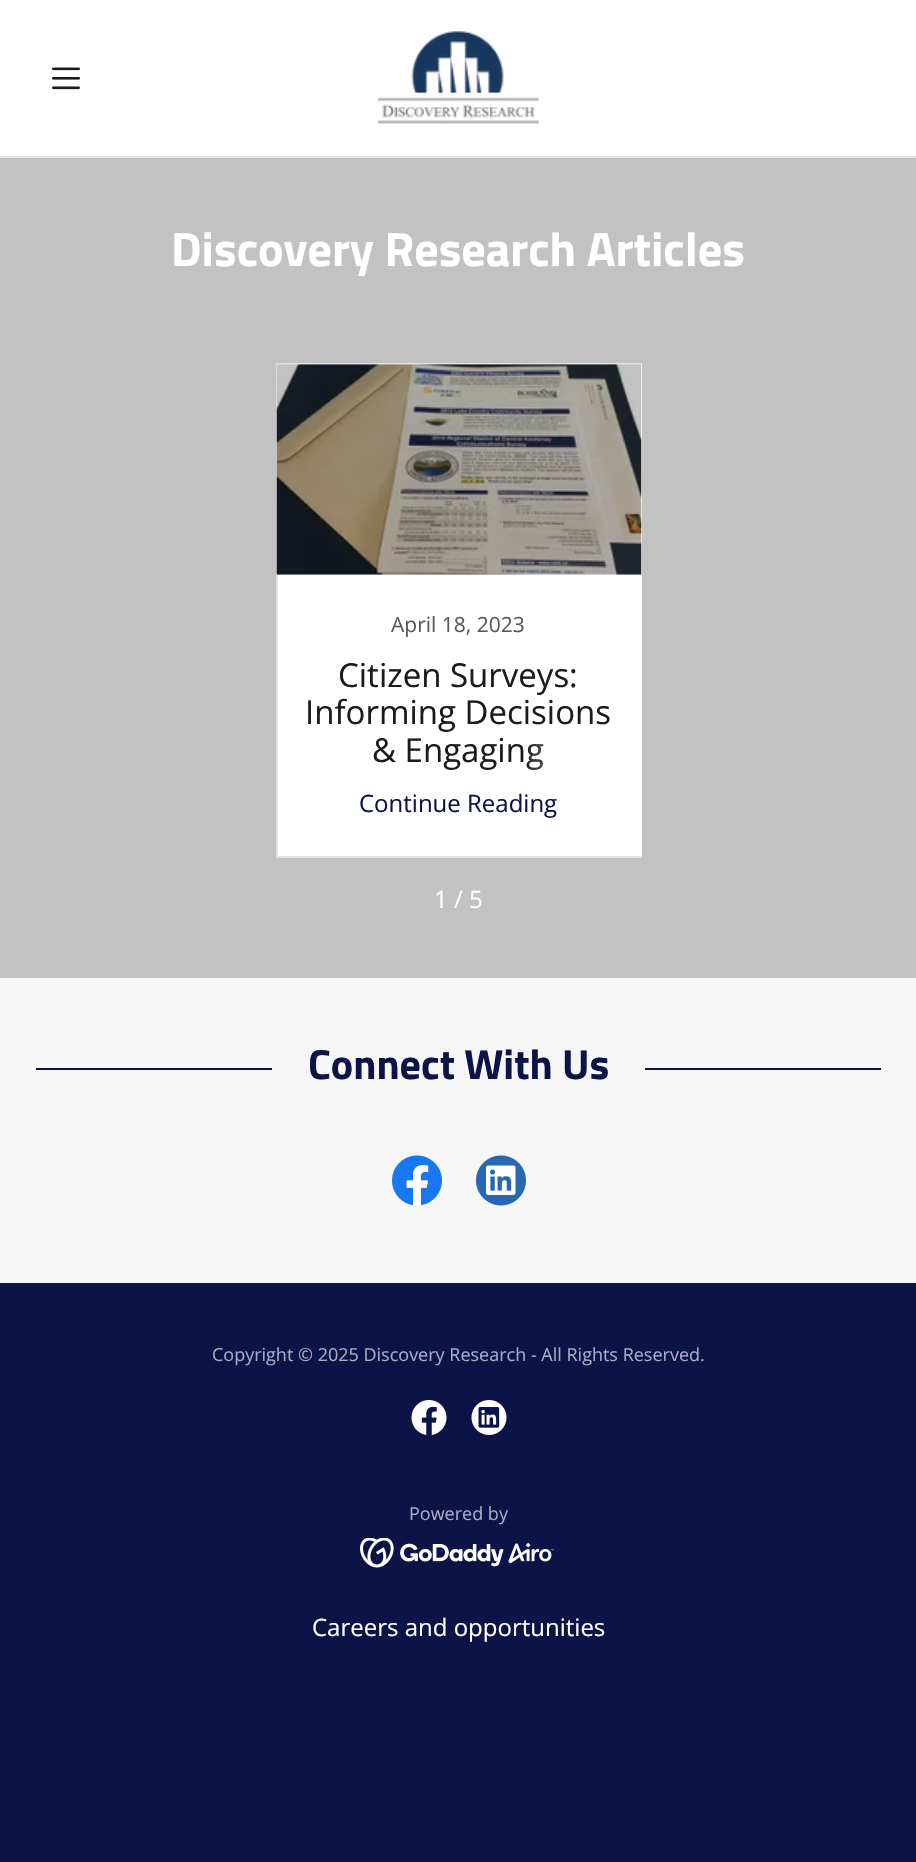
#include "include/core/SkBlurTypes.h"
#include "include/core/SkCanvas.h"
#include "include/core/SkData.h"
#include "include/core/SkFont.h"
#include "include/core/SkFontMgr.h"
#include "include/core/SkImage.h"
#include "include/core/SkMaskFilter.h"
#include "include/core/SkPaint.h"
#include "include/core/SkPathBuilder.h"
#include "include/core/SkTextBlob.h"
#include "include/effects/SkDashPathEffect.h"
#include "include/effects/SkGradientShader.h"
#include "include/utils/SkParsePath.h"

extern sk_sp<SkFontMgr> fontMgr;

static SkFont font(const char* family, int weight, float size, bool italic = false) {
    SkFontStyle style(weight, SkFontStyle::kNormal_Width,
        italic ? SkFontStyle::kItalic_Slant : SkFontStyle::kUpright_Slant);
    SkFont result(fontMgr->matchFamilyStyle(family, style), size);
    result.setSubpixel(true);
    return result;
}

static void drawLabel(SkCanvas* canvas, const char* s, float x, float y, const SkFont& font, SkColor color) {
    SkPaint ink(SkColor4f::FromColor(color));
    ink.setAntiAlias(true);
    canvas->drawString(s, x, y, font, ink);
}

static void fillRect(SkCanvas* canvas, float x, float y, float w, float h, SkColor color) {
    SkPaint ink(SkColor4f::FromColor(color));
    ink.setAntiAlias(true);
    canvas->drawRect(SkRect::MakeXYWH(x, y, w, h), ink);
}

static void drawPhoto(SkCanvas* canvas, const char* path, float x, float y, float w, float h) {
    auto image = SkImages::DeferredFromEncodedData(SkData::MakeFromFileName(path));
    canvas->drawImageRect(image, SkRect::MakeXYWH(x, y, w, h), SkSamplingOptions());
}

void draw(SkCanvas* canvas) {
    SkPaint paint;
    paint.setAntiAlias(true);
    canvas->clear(0xFF0B1347);
    fillRect(canvas, 0, 0, 916, 156, 0xFFFFFFFF);
    drawPhoto(canvas, "assets/img1.png", 52, 67, 28, 23);
    drawPhoto(canvas, "assets/img2.png", 378, 31, 161, 93);
    fillRect(canvas, 0, 156, 916, 2, 0xFFE2E2E2);
    fillRect(canvas, 0, 158, 916, 820, 0xFFC2C2C2);
    SkFont font1 = font("Titillium Web", 700, 48);
    drawLabel(canvas, "Discovery Research Articles", 171, 266, font1, 0xFFFFFFFF);
    fillRect(canvas, 278, 365, 364, 491, 0xFFFFFFFF);
    canvas->save();
    canvas->clipRect(SkRect::MakeXYWH(275, 363, 367, 495));
    paint.setStroke(true);
    paint.setStrokeWidth(2);
    paint.setColor(0xFFE2E2E2);
    canvas->drawRect(SkRect::MakeXYWH(277, 364, 366, 493), paint);
    canvas->restore();
    drawPhoto(canvas, "assets/img3.png", 276, 364, 366, 211);
    SkFont font2 = font("Open Sans", 400, 21);
    drawLabel(canvas, "April 18, 2023", 391, 632, font2, 0xFF595959);
    SkFont font3 = font("Open Sans", 400, 33);
    drawLabel(canvas, "Citizen Surveys:", 338, 687, font3, 0xFF1B1B1B);
    drawLabel(canvas, "Informing Decisions", 305, 724, font3, 0xFF1B1B1B);
    drawLabel(canvas, "& Engaging", 372, 762, font3, 0xFF1B1B1B);
    paint.setStroke(false);
    {
        const SkColor colors[] = {0x00FFFFFF, 0xFFFFFFFF};
        const float stops[] = {0, 1};
        const SkPoint ends[] = {{524, 751}, {623, 751}};
        paint.setShader(SkGradientShader::MakeLinear(ends, colors, stops, 2, SkTileMode::kClamp));
        paint.setAlpha(255);
    }
    canvas->drawRect(SkRect::MakeXYWH(527, 744, 17, 26), paint);
    SkFont font4 = font("Open Sans", 400, 24);
    drawLabel(canvas, "Continue Reading", 359, 812, font4, 0xFF0B1347);
    drawLabel(canvas, "1 / 5", 434, 908, font4, 0xFFFFFFFF);
    fillRect(canvas, 0, 978, 916, 305, 0xFFF6F6F6);
    fillRect(canvas, 36, 1068, 236, 2, 0xFF0B1347);
    SkFont font5 = font("Titillium Web", 700, 42);
    drawLabel(canvas, "Connect With Us", 308, 1079, font5, 0xFF0B1347);
    fillRect(canvas, 645, 1068, 236, 2, 0xFF0B1347);
    drawPhoto(canvas, "assets/img4.png", 392, 1155, 50, 51);
    drawPhoto(canvas, "assets/img5.png", 476, 1155, 50, 51);
    SkFont font6 = font("Open Sans", 400, 18);
    drawLabel(canvas, "Copyright © 2025 Discovery Research - All Rights Reserved.", 212, 1361, font6, 0xFFABACC4);
    drawPhoto(canvas, "assets/img6.png", 411, 1400, 36, 35);
    drawPhoto(canvas, "assets/img7.png", 471, 1400, 36, 35);
    drawLabel(canvas, "Powered by", 409, 1520, font6, 0xFFABACC4);
    drawPhoto(canvas, "assets/img8.png", 360, 1538, 194, 30);
    drawLabel(canvas, "Careers and opportunities", 312, 1636, font4, 0xFFFFFFFF);
}
